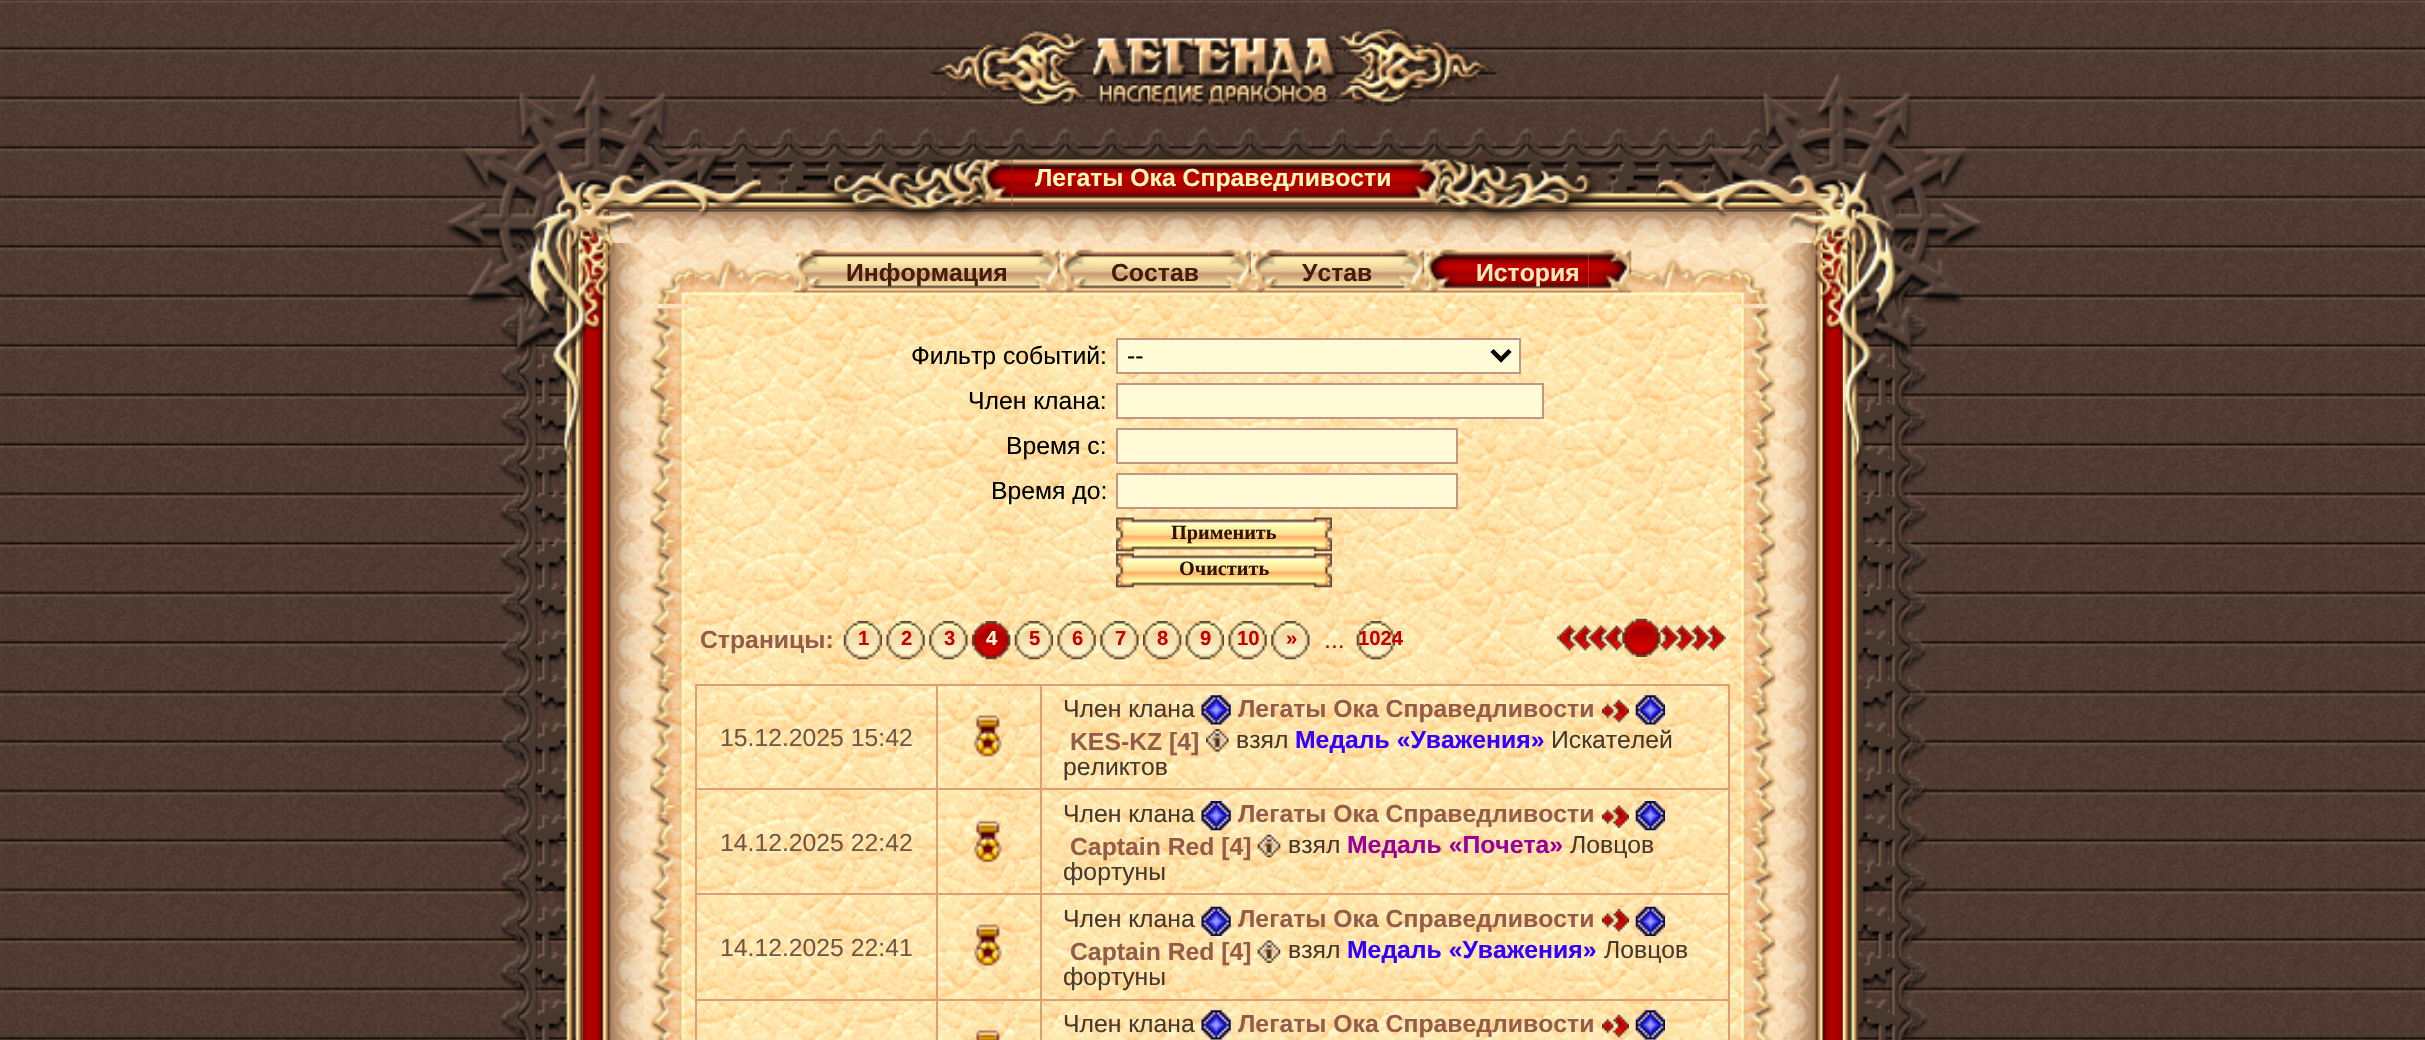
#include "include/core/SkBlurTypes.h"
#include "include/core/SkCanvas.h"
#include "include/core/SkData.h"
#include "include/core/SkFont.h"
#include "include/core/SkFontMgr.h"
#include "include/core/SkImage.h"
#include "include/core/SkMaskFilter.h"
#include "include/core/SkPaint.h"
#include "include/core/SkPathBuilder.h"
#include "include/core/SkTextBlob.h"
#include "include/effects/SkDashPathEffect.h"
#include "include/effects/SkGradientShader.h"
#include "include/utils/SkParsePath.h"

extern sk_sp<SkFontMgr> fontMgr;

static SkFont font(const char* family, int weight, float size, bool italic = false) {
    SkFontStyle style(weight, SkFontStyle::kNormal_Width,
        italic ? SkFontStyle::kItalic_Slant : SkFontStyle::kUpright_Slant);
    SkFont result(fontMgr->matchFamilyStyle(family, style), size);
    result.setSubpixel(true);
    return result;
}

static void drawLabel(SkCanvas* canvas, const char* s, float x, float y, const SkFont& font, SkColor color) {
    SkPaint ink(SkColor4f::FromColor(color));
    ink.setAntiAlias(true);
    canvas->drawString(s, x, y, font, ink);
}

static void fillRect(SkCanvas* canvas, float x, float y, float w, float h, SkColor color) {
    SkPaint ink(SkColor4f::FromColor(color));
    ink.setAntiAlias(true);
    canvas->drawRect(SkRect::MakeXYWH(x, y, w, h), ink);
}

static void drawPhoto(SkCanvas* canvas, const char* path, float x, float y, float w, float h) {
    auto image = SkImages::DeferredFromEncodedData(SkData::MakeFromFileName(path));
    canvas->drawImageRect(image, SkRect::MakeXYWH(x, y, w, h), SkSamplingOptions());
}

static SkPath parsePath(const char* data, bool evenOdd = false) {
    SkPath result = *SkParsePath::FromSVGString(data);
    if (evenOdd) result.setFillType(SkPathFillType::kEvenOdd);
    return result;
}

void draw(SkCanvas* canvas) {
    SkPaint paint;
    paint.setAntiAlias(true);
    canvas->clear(0xFFFFFFFF);
    drawPhoto(canvas, "assets/img1.png", 0, 0, 2425, 1040);
    drawPhoto(canvas, "assets/img2.png", 931, 27, 566, 79);
    drawPhoto(canvas, "assets/img4.png", 582, 127, 1261, 83);
    drawPhoto(canvas, "assets/img8.png", 500, 209, 83, 831);
    drawPhoto(canvas, "assets/img9.png", 1842, 209, 86, 831);
    drawPhoto(canvas, "assets/img10.png", 582, 209, 1261, 831);
    drawPhoto(canvas, "assets/img11.png", 582, 209, 62, 831);
    drawPhoto(canvas, "assets/img12.png", 1782, 209, 61, 831);
    drawPhoto(canvas, "assets/img13.png", 609, 209, 1207, 34);
    drawPhoto(canvas, "assets/img3.png", 445, 74, 316, 394);
    drawPhoto(canvas, "assets/img5.png", 821, 148, 192, 79);
    drawPhoto(canvas, "assets/img6.png", 1012, 147, 593, 80);
    SkFont font1 = font("Liberation Sans", 700, 24.75f);
    drawLabel(canvas, "Легаты Ока Справедливости", 1035, 186, font1, 0xFFFAF7B9);
    drawPhoto(canvas, "assets/img7.png", 1656, 74, 327, 395);
    drawPhoto(canvas, "assets/img15.png", 695, 258, 1036, 51);
    drawPhoto(canvas, "assets/img14.png", 656, 267, 40, 37);
    drawPhoto(canvas, "assets/img16.png", 794, 249, 43, 45);
    drawPhoto(canvas, "assets/img17.png", 837, 249, 180, 45);
    drawLabel(canvas, "Информация", 846, 281, font1, 0xFF461C0B);
    drawPhoto(canvas, "assets/img18.png", 1017, 249, 43, 45);
    drawPhoto(canvas, "assets/img20.png", 1102, 249, 107, 45);
    drawPhoto(canvas, "assets/img19.png", 1059, 249, 44, 45);
    drawLabel(canvas, "Состав", 1111, 281, font1, 0xFF461C0B);
    drawPhoto(canvas, "assets/img21.png", 1208, 249, 43, 45);
    drawPhoto(canvas, "assets/img23.png", 1293, 249, 89, 45);
    drawPhoto(canvas, "assets/img22.png", 1251, 249, 43, 45);
    drawLabel(canvas, "Устав", 1302, 281, font1, 0xFF461C0B);
    drawPhoto(canvas, "assets/img24.png", 1381, 249, 44, 45);
    drawPhoto(canvas, "assets/img25.png", 1424, 249, 43, 45);
    drawPhoto(canvas, "assets/img26.png", 1467, 249, 122, 45);
    drawLabel(canvas, "История", 1476, 281, font1, 0xFFFFE9BA);
    drawPhoto(canvas, "assets/img27.png", 1588, 249, 44, 45);
    drawPhoto(canvas, "assets/img28.png", 1730, 267, 39, 37);
    drawPhoto(canvas, "assets/img29.png", 650, 308, 46, 732);
    drawPhoto(canvas, "assets/img30.png", 695, 308, 1036, 732);
    SkFont font2 = font("Liberation Sans", 400, 24.75f);
    drawLabel(canvas, "Фильтр событий:", 911, 364, font2, 0xFF000000);
    paint.setColor(0xFFFFFBD6);
    canvas->drawRect(SkRect::MakeXYWH(1117, 339, 403, 34), paint);
    paint.setStroke(true);
    paint.setStrokeWidth(2);
    paint.setColor(0xFFC49485);
    canvas->drawRect(SkRect::MakeXYWH(1117, 339, 403, 34), paint);
    paint.setStrokeWidth(4.5f);
    paint.setColor(0xFF000000);
    canvas->drawPath(parsePath("M1492 350.5L1501 359.5L1510 350.5"), paint);
    drawLabel(canvas, "--", 1127, 364, font2, 0xFF000000);
    drawLabel(canvas, "Член клана:", 968, 409, font2, 0xFF000000);
    paint.setStroke(false);
    paint.setColor(0xFFFFFBD6);
    canvas->drawRect(SkRect::MakeXYWH(1117, 384, 426, 34), paint);
    paint.setStroke(true);
    paint.setStrokeWidth(2);
    paint.setColor(0xFFC49485);
    canvas->drawRect(SkRect::MakeXYWH(1117, 384, 426, 34), paint);
    drawLabel(canvas, "Время с:", 1006, 454, font2, 0xFF000000);
    paint.setStroke(false);
    paint.setColor(0xFFFFFBD6);
    canvas->drawRect(SkRect::MakeXYWH(1117, 429, 340, 34), paint);
    paint.setStroke(true);
    paint.setColor(0xFFC49485);
    canvas->drawRect(SkRect::MakeXYWH(1117, 429, 340, 34), paint);
    drawLabel(canvas, "Время до:", 991, 499, font2, 0xFF000000);
    paint.setStroke(false);
    paint.setColor(0xFFFFFBD6);
    canvas->drawRect(SkRect::MakeXYWH(1117, 474, 340, 34), paint);
    paint.setStroke(true);
    paint.setColor(0xFFC49485);
    canvas->drawRect(SkRect::MakeXYWH(1117, 474, 340, 34), paint);
    drawPhoto(canvas, "assets/img31.png", 1116, 517, 18, 35);
    drawPhoto(canvas, "assets/img32.png", 1314, 517, 18, 35);
    drawPhoto(canvas, "assets/img33.png", 1134, 519, 180, 31);
    SkFont font3 = font("Liberation Serif", 700, 20.25f);
    drawLabel(canvas, "Применить", 1171, 539, font3, 0xFF2D1600);
    drawPhoto(canvas, "assets/img34.png", 1116, 553, 18, 35);
    drawPhoto(canvas, "assets/img35.png", 1314, 553, 18, 35);
    drawPhoto(canvas, "assets/img36.png", 1134, 555, 180, 31);
    drawLabel(canvas, "Очистить", 1179, 575, font3, 0xFF2D1600);
    drawLabel(canvas, "Страницы:", 700, 648, font1, 0xFF955C4A);
    drawPhoto(canvas, "assets/img37.png", 843, 621, 39, 39);
    SkFont font4 = font("Liberation Sans", 700, 20.25f);
    drawLabel(canvas, "1", 858, 645, font4, 0xFFC50000);
    drawPhoto(canvas, "assets/img38.png", 886, 621, 39, 39);
    drawLabel(canvas, "2", 901, 645, font4, 0xFFC50000);
    drawPhoto(canvas, "assets/img39.png", 929, 621, 39, 39);
    drawLabel(canvas, "3", 944, 645, font4, 0xFFC50000);
    drawPhoto(canvas, "assets/img40.png", 972, 621, 39, 39);
    drawLabel(canvas, "4", 986, 645, font4, 0xFFFFF3D2);
    drawPhoto(canvas, "assets/img41.png", 1014, 621, 39, 39);
    drawLabel(canvas, "5", 1029, 645, font4, 0xFFC50000);
    drawPhoto(canvas, "assets/img42.png", 1057, 621, 39, 39);
    drawLabel(canvas, "6", 1072, 645, font4, 0xFFC50000);
    drawPhoto(canvas, "assets/img43.png", 1100, 621, 39, 39);
    drawLabel(canvas, "7", 1115, 645, font4, 0xFFC50000);
    drawPhoto(canvas, "assets/img44.png", 1143, 621, 39, 39);
    drawLabel(canvas, "8", 1157, 645, font4, 0xFFC50000);
    drawPhoto(canvas, "assets/img45.png", 1185, 621, 39, 39);
    drawLabel(canvas, "9", 1200, 645, font4, 0xFFC50000);
    drawPhoto(canvas, "assets/img46.png", 1228, 621, 39, 39);
    drawLabel(canvas, "10", 1237, 645, font4, 0xFFC50000);
    drawPhoto(canvas, "assets/img47.png", 1271, 621, 39, 39);
    drawLabel(canvas, "»", 1286, 645, font4, 0xFFC50000);
    drawPhoto(canvas, "assets/img48.png", 1356, 621, 39, 39);
    drawLabel(canvas, "1024", 1358, 645, font4, 0xFFC50000);
    drawPhoto(canvas, "assets/img49.png", 1557, 625, 66, 26);
    drawPhoto(canvas, "assets/img50.png", 1622, 618, 39, 39);
    drawPhoto(canvas, "assets/img51.png", 1660, 625, 66, 26);
    drawLabel(canvas, "...", 1324, 648, font2, 0xFF8D2616);
    fillRect(canvas, 695, 684, 1035, 2, 0xFFDB9F73);
    fillRect(canvas, 1728, 684, 2, 356, 0xFFDB9F73);
    fillRect(canvas, 695, 684, 2, 356, 0xFFDB9F73);
    drawLabel(canvas, "15.12.2025 15:42", 720, 746, font2, 0xFF725644);
    fillRect(canvas, 1040, 788, 690, 2, 0xFFDB9F73);
    fillRect(canvas, 1040, 893, 690, 2, 0xFFDB9F73);
    fillRect(canvas, 1040, 999, 690, 2, 0xFFDB9F73);
    fillRect(canvas, 1040, 999, 2, 41, 0xFFDB9F73);
    fillRect(canvas, 936, 999, 106, 2, 0xFFDB9F73);
    fillRect(canvas, 1040, 893, 2, 108, 0xFFDB9F73);
    fillRect(canvas, 936, 893, 106, 2, 0xFFDB9F73);
    fillRect(canvas, 1040, 788, 2, 108, 0xFFDB9F73);
    fillRect(canvas, 936, 788, 106, 2, 0xFFDB9F73);
    fillRect(canvas, 936, 999, 2, 41, 0xFFDB9F73);
    fillRect(canvas, 695, 999, 243, 2, 0xFFDB9F73);
    fillRect(canvas, 936, 893, 2, 108, 0xFFDB9F73);
    fillRect(canvas, 695, 893, 243, 2, 0xFFDB9F73);
    fillRect(canvas, 936, 788, 2, 108, 0xFFDB9F73);
    fillRect(canvas, 695, 788, 243, 2, 0xFFDB9F73);
    fillRect(canvas, 936, 684, 2, 106, 0xFFDB9F73);
    drawPhoto(canvas, "assets/img52.png", 973, 715, 29, 42);
    fillRect(canvas, 1040, 684, 2, 106, 0xFFDB9F73);
    drawLabel(canvas, "Член клана", 1063, 717, font2, 0xFF49382D);
    drawPhoto(canvas, "assets/img53.png", 1201, 695, 30, 30);
    drawLabel(canvas, "Легаты Ока Справедливости", 1238, 717, font1, 0xFF955C4A);
    drawPhoto(canvas, "assets/img54.png", 1602, 699, 27, 24);
    drawPhoto(canvas, "assets/img55.png", 1635, 695, 30, 30);
    drawLabel(canvas, "KES-KZ [4]", 1070, 750, font1, 0xFF955C4A);
    drawPhoto(canvas, "assets/img56.png", 1206, 729, 23, 23);
    drawLabel(canvas, "взял", 1236, 748, font2, 0xFF49382D);
    drawLabel(canvas, "Медаль «Уважения»", 1295, 748, font1, 0xFF3300FF);
    drawLabel(canvas, "Искателей", 1551, 748, font2, 0xFF49382D);
    drawLabel(canvas, "реликтов", 1063, 775, font2, 0xFF49382D);
    drawLabel(canvas, "14.12.2025 22:42", 720, 851, font2, 0xFF725644);
    drawPhoto(canvas, "assets/img57.png", 973, 820, 29, 43);
    drawLabel(canvas, "Член клана", 1063, 822, font2, 0xFF49382D);
    drawPhoto(canvas, "assets/img58.png", 1201, 801, 30, 30);
    drawLabel(canvas, "Легаты Ока Справедливости", 1238, 822, font1, 0xFF955C4A);
    drawPhoto(canvas, "assets/img59.png", 1602, 805, 27, 23);
    drawPhoto(canvas, "assets/img60.png", 1635, 801, 30, 30);
    drawLabel(canvas, "Captain Red [4]", 1070, 855, font1, 0xFF955C4A);
    drawPhoto(canvas, "assets/img61.png", 1257, 834, 24, 24);
    drawLabel(canvas, "взял", 1288, 853, font2, 0xFF49382D);
    drawLabel(canvas, "Медаль «Почета»", 1347, 853, font1, 0xFF990099);
    drawLabel(canvas, "Ловцов", 1570, 853, font2, 0xFF49382D);
    drawLabel(canvas, "фортуны", 1063, 880, font2, 0xFF49382D);
    drawLabel(canvas, "14.12.2025 22:41", 720, 956, font2, 0xFF725644);
    drawPhoto(canvas, "assets/img62.png", 973, 924, 29, 42);
    drawLabel(canvas, "Член клана", 1063, 927, font2, 0xFF49382D);
    drawPhoto(canvas, "assets/img63.png", 1201, 906, 30, 30);
    drawLabel(canvas, "Легаты Ока Справедливости", 1238, 927, font1, 0xFF955C4A);
    drawPhoto(canvas, "assets/img64.png", 1602, 909, 27, 23);
    drawPhoto(canvas, "assets/img65.png", 1635, 906, 30, 30);
    drawLabel(canvas, "Captain Red [4]", 1070, 960, font1, 0xFF955C4A);
    drawPhoto(canvas, "assets/img66.png", 1257, 940, 24, 23);
    drawLabel(canvas, "взял", 1288, 958, font2, 0xFF49382D);
    drawLabel(canvas, "Медаль «Уважения»", 1347, 958, font1, 0xFF3300FF);
    drawLabel(canvas, "Ловцов", 1604, 958, font2, 0xFF49382D);
    drawLabel(canvas, "фортуны", 1063, 985, font2, 0xFF49382D);
    drawPhoto(canvas, "assets/img67.png", 976, 1030, 25, 10);
    drawLabel(canvas, "Член клана", 1063, 1032, font2, 0xFF49382D);
    drawPhoto(canvas, "assets/img68.png", 1201, 1010, 30, 30);
    drawLabel(canvas, "Легаты Ока Справедливости", 1238, 1032, font1, 0xFF955C4A);
    drawPhoto(canvas, "assets/img69.png", 1602, 1014, 27, 24);
    drawPhoto(canvas, "assets/img70.png", 1635, 1010, 30, 30);
    drawPhoto(canvas, "assets/img71.png", 1730, 308, 46, 732);
}
